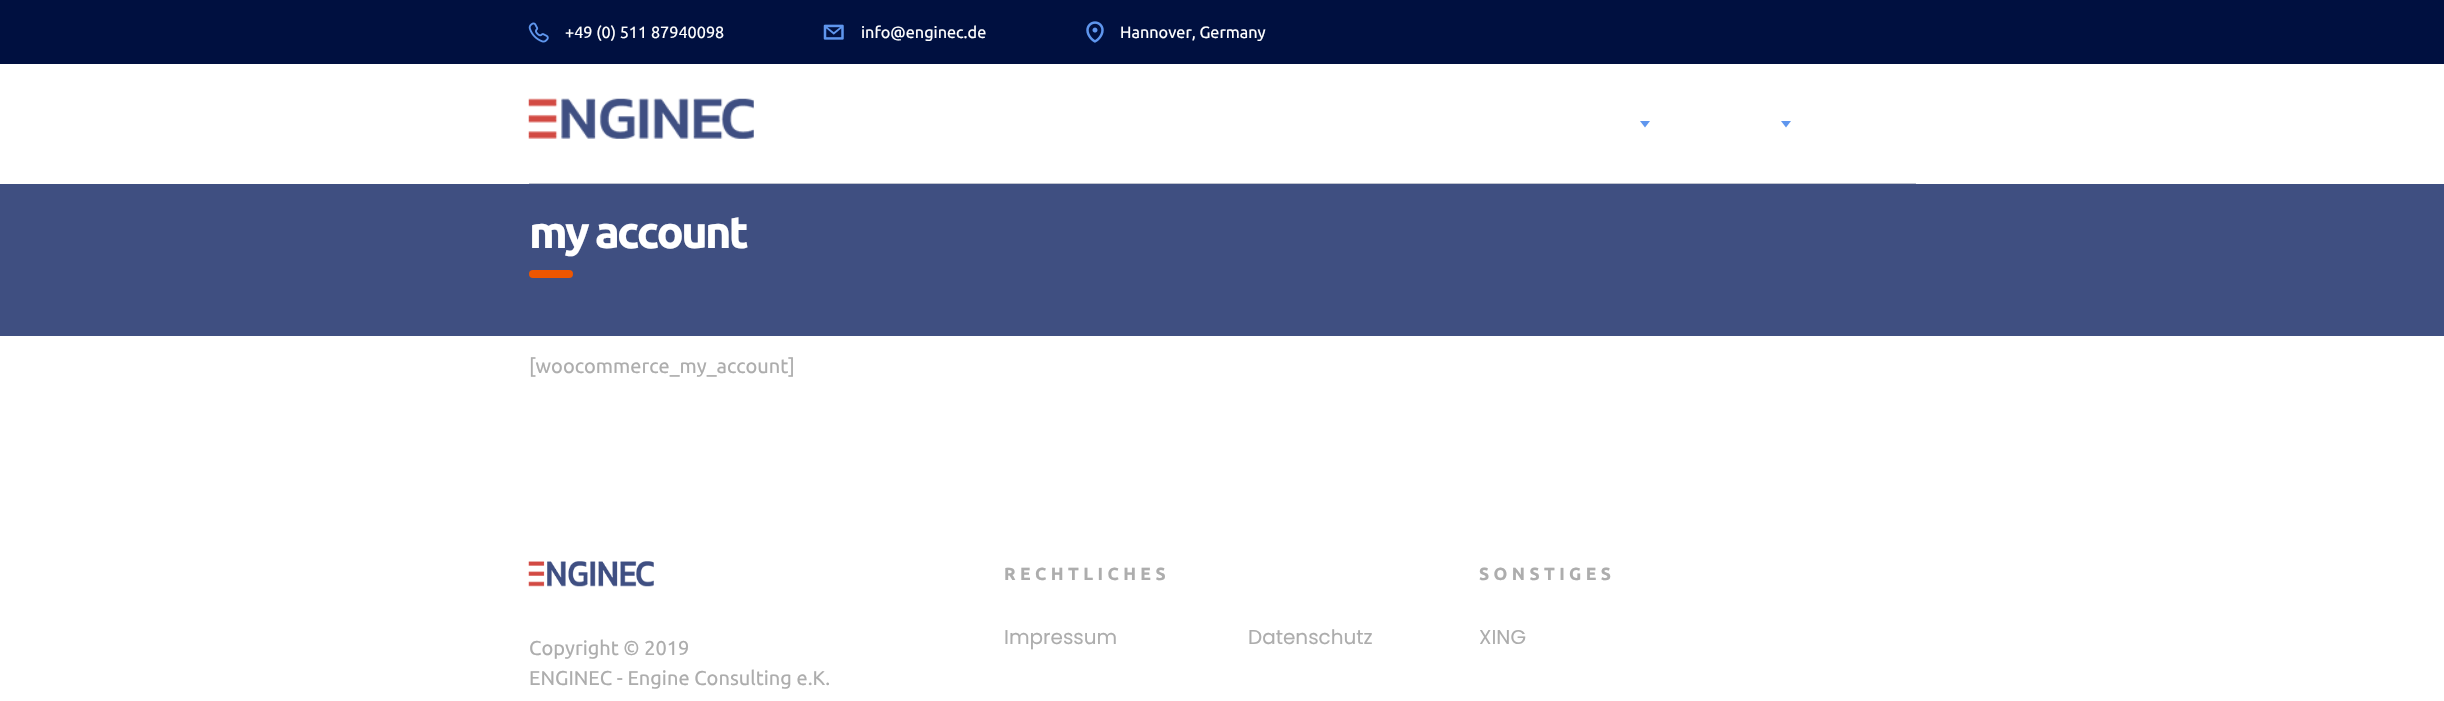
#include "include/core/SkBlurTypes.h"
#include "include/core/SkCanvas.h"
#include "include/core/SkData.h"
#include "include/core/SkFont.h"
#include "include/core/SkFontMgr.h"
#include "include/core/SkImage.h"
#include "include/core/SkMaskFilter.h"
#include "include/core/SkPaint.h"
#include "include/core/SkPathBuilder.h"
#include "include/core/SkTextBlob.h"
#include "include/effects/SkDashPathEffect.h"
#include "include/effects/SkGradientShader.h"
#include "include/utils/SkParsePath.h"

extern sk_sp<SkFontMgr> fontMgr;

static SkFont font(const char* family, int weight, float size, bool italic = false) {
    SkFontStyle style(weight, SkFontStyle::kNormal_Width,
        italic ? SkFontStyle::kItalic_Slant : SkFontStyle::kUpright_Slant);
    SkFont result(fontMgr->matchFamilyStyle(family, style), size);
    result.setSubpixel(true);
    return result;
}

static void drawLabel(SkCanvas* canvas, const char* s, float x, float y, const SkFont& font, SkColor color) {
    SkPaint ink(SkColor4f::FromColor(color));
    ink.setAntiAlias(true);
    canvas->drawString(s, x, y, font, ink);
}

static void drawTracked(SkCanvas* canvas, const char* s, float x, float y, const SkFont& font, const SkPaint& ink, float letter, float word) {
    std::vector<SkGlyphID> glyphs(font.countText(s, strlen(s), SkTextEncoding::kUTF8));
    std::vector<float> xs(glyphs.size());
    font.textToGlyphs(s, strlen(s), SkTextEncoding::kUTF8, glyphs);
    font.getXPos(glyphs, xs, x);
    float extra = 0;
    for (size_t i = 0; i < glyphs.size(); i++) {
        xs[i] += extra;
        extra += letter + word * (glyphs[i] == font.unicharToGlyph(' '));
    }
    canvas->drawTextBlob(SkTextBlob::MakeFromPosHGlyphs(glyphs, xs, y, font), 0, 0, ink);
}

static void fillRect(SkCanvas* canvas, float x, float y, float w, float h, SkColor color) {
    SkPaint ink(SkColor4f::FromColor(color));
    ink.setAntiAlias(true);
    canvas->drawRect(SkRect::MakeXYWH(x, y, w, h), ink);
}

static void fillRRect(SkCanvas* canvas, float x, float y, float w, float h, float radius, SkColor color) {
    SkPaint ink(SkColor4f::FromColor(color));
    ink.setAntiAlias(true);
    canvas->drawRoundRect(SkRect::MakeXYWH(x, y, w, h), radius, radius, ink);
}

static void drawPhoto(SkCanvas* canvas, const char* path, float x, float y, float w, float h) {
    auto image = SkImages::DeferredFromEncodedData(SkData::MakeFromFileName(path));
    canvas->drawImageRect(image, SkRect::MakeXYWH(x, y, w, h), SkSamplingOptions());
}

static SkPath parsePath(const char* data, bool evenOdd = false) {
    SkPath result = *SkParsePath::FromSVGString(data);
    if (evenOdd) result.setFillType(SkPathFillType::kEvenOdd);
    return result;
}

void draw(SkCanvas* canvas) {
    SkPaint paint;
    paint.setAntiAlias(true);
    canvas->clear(0xFFFFFFFF);
    fillRect(canvas, 0, 0, 2444, 64, 0xFF001040);
    drawPhoto(canvas, "assets/img1.png", 528, 22, 21, 21);
    SkFont font1 = font("Ubuntu", 400, 16.25f);
    drawLabel(canvas, "+49 (0) 511 87940098", 565, 38, font1, 0xFFFFFFFF);
    drawPhoto(canvas, "assets/img2.png", 823, 24, 21, 16);
    drawLabel(canvas, "info@enginec.de", 861, 38, font1, 0xFFFFFFFF);
    drawPhoto(canvas, "assets/img3.png", 1086, 21, 18, 22);
    drawLabel(canvas, "Hannover, Germany", 1120, 38, font1, 0xFFFFFFFF);
    fillRect(canvas, 529, 183, 1387, 1, 0xFFBFC3CF);
    drawPhoto(canvas, "assets/img4.png", 528, 98, 226, 41);
    paint.setColor(0xFF5F96EE);
    canvas->drawPath(parsePath("M1640 121H1650L1645 127.5Z"), paint);
    canvas->drawPath(parsePath("M1781 121H1791L1786 127.5Z"), paint);
    fillRect(canvas, 0, 184, 2444, 152, 0xFF3F4F81);
    SkFont font2 = font("Ubuntu", 700, 45);
    paint.setColor(0xFFFFFFFF);
    drawTracked(canvas, "my account", 529, 248, font2, paint, -2.75f, 0);
    fillRRect(canvas, 529, 270, 44, 8, 4, 0xFFED5600);
    SkFont font3 = font("Ubuntu", 400, 20);
    drawLabel(canvas, "[woocommerce_my_account]", 529, 373, font3, 0xFFADADAD);
    SkFont font4 = font("Ubuntu", 700, 17.5f);
    paint.setColor(0xFFADADAD);
    drawTracked(canvas, "RECHTLICHES", 1004, 580, font4, paint, 4.4f, 0);
    SkFont font5 = font("Poppins", 400, 20);
    drawLabel(canvas, "Impressum", 1004, 644, font5, 0xFFADADAD);
    drawLabel(canvas, "Datenschutz", 1248, 644, font5, 0xFFADADAD);
    drawTracked(canvas, "SONSTIGES", 1479, 580, font4, paint, 4.4f, 0);
    drawLabel(canvas, "XING", 1479, 644, font5, 0xFFADADAD);
    drawPhoto(canvas, "assets/img5.png", 528, 561, 126, 26);
    drawLabel(canvas, "Copyright © 2019", 529, 655, font3, 0xFFADADAD);
    drawLabel(canvas, "ENGINEC - Engine Consulting e.K.", 529, 685, font3, 0xFFADADAD);
}
